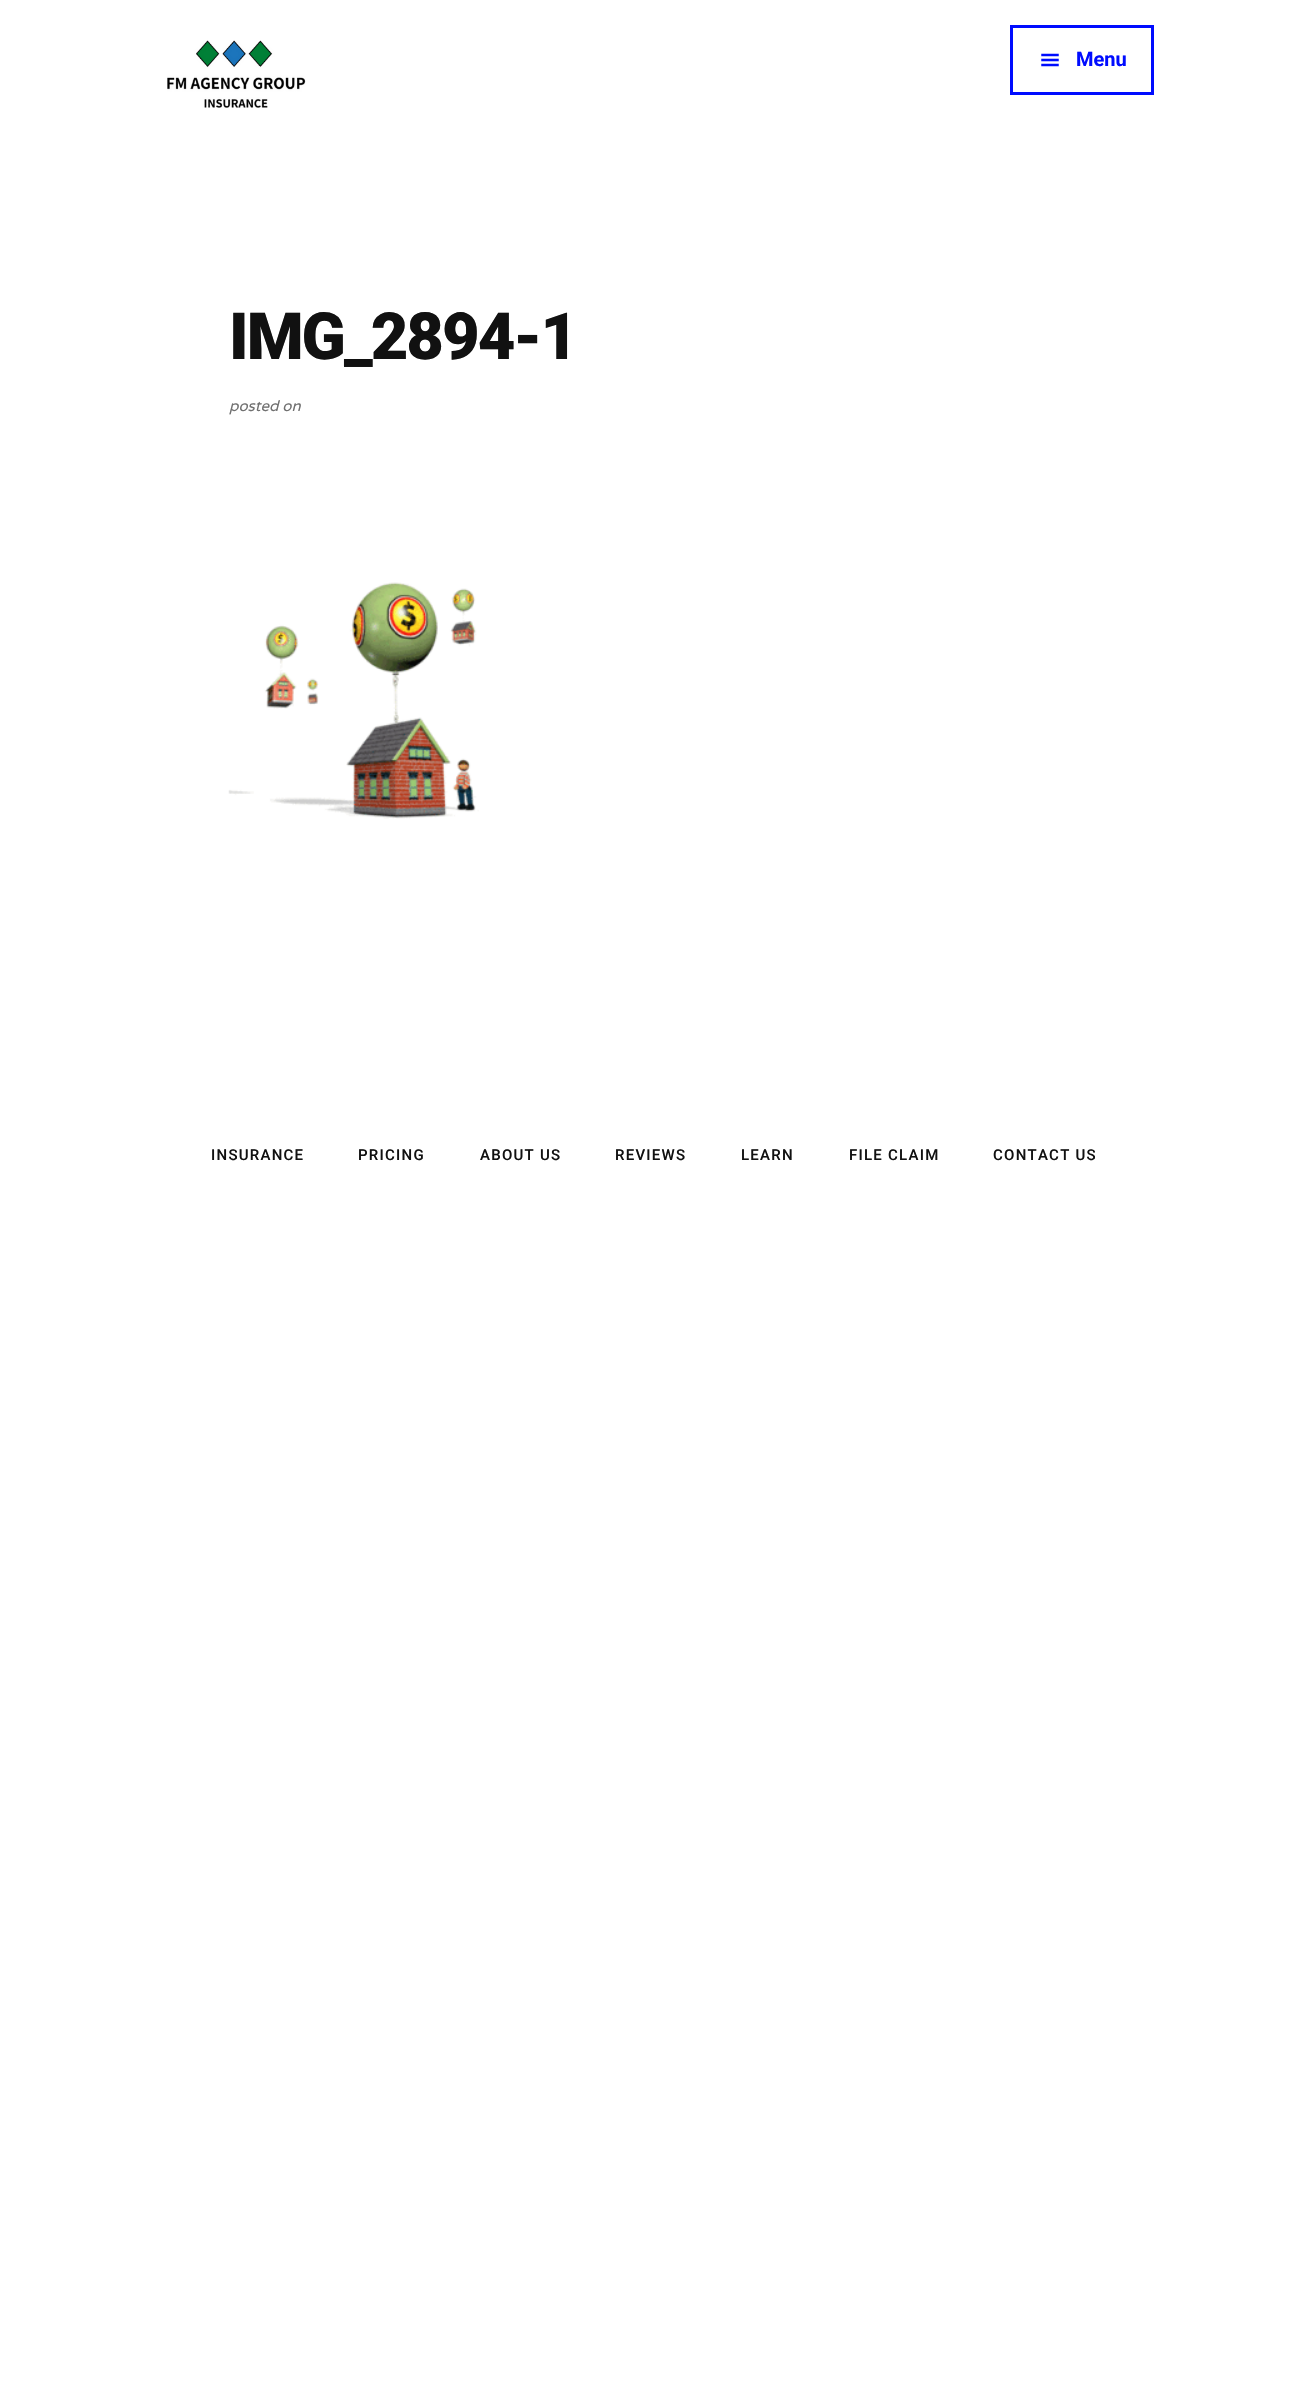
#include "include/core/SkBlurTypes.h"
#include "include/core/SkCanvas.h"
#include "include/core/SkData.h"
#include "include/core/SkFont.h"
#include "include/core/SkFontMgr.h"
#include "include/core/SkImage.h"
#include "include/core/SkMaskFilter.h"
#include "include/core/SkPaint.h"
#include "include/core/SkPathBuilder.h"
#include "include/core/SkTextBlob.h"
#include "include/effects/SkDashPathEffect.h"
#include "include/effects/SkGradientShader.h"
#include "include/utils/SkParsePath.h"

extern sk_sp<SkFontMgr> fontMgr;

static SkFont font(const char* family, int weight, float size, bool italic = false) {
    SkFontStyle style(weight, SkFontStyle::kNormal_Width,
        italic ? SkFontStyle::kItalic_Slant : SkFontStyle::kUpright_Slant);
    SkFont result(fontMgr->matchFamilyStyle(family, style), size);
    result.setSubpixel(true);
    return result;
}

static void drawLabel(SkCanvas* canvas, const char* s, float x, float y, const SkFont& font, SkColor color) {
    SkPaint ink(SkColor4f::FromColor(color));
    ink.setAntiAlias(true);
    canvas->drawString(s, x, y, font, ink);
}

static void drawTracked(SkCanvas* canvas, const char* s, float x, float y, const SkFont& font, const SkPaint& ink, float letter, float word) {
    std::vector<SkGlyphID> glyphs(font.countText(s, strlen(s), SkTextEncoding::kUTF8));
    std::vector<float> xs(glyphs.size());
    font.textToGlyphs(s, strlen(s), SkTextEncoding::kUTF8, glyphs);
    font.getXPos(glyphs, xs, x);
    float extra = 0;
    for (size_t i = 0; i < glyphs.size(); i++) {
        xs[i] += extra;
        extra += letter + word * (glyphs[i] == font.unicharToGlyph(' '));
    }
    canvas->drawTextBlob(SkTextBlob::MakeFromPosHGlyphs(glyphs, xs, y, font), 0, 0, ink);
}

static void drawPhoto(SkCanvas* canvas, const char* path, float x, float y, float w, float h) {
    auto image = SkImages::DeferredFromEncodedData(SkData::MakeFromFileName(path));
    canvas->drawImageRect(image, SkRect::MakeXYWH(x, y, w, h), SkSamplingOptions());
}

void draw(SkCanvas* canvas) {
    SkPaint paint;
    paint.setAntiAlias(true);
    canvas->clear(0xFFFFFFFF);
    drawPhoto(canvas, "assets/img1.png", 167, 40, 139, 68);
    paint.setStroke(true);
    paint.setStrokeWidth(3);
    paint.setColor(0xFF000CFF);
    canvas->drawRect(SkRect::MakeXYWH(1011.5f, 26.5f, 141, 67), paint);
    drawPhoto(canvas, "assets/img2.png", 1041, 53, 18, 14);
    SkFont font1 = font("Roboto", 700, 20);
    drawLabel(canvas, "Menu", 1076, 66, font1, 0xFF000CFF);
    SkFont font2 = font("Roboto", 900, 65);
    paint.setStroke(false);
    paint.setColor(0xFF111111);
    drawTracked(canvas, "IMG_2894-1", 229, 359, font2, paint, -2, 0);
    SkFont font3 = font("Varela Round", 400, 15, true);
    drawLabel(canvas, "posted on", 229, 411, font3, 0xFF707070);
    drawPhoto(canvas, "assets/img3.png", 228, 582, 251, 237);
    SkFont font4 = font("Roboto", 500, 15);
    drawTracked(canvas, "INSURANCE", 211, 1160, font4, paint, 1.25f, 0);
    drawTracked(canvas, "PRICING", 358, 1160, font4, paint, 1.25f, 0);
    drawTracked(canvas, "ABOUT US", 480, 1160, font4, paint, 1.25f, 0);
    drawTracked(canvas, "REVIEWS", 615, 1160, font4, paint, 1.25f, 0);
    drawTracked(canvas, "LEARN", 741, 1160, font4, paint, 1.25f, 0);
    drawTracked(canvas, "FILE CLAIM", 849, 1160, font4, paint, 1.25f, 0);
    drawTracked(canvas, "CONTACT US", 993, 1160, font4, paint, 1.25f, 0);
}
